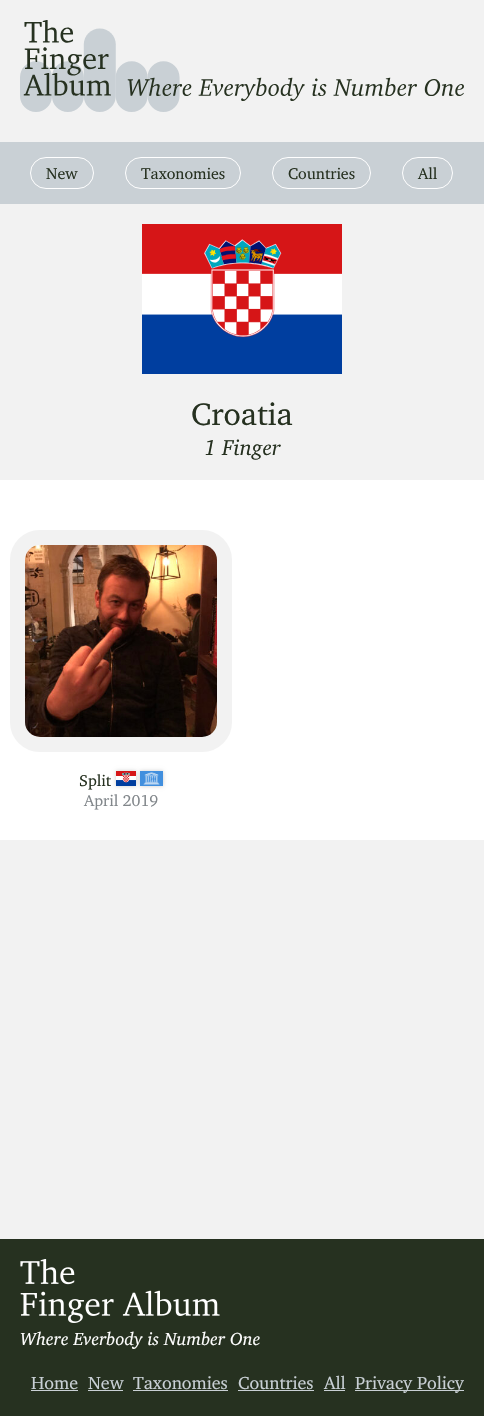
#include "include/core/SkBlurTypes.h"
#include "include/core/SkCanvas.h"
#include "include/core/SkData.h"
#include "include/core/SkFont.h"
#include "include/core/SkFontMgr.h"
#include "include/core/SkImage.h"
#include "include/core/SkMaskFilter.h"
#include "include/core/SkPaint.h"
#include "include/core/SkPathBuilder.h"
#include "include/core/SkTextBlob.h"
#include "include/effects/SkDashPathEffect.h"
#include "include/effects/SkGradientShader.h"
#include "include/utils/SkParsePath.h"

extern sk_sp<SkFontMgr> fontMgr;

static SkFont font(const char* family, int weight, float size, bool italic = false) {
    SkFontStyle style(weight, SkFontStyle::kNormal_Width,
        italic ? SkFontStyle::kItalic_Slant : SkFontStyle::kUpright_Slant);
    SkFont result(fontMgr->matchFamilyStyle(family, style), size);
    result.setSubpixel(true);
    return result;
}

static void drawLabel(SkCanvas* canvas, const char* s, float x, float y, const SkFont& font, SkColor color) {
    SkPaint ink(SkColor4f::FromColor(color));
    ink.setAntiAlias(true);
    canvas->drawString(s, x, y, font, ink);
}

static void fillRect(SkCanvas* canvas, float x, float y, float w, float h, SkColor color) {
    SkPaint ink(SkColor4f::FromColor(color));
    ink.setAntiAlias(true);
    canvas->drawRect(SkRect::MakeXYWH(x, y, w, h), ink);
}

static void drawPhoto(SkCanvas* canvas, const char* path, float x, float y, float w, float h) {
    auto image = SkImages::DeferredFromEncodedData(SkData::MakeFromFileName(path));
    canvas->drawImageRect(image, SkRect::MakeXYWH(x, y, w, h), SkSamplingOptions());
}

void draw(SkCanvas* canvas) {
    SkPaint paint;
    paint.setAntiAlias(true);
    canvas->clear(0xFFF2F2F2);
    drawPhoto(canvas, "assets/img1.png", 20, 20, 444, 92);
    fillRect(canvas, 0, 142, 484, 62, 0xFFC9D0D5);
    paint.setStroke(true);
    paint.setStrokeWidth(1);
    paint.setColor(0xFFFFFFFF);
    canvas->drawRoundRect(SkRect::MakeXYWH(30.5f, 157.5f, 63, 31), 15.5f, 15.5f, paint);
    SkFont font1 = font("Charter", 400, 16);
    drawLabel(canvas, "New", 46, 179, font1, 0xFF263120);
    canvas->drawRoundRect(SkRect::MakeXYWH(125.5f, 157.5f, 115, 31), 15.5f, 15.5f, paint);
    drawLabel(canvas, "Taxonomies", 141, 179, font1, 0xFF263120);
    canvas->drawRoundRect(SkRect::MakeXYWH(272.5f, 157.5f, 98, 31), 15.5f, 15.5f, paint);
    drawLabel(canvas, "Countries", 288, 179, font1, 0xFF263120);
    canvas->drawRoundRect(SkRect::MakeXYWH(402.5f, 157.5f, 50, 31), 15.5f, 15.5f, paint);
    drawLabel(canvas, "All", 418, 179, font1, 0xFF263120);
    drawPhoto(canvas, "assets/img2.png", 142, 224, 200, 150);
    SkFont font2 = font("Charter", 400, 32);
    drawLabel(canvas, "Croatia", 191, 425, font2, 0xFF263120);
    SkFont font3 = font("Charter", 400, 22, true);
    drawLabel(canvas, "1 Finger", 204, 455, font3, 0xFF263120);
    fillRect(canvas, 0, 480, 484, 360, 0xFFFFFFFF);
    paint.setStroke(false);
    paint.setColor(0xFFF2F2F2);
    canvas->drawRoundRect(SkRect::MakeXYWH(17.5f, 537.5f, 207, 207), 22.5f, 22.5f, paint);
    paint.setStroke(true);
    paint.setStrokeWidth(15);
    canvas->drawRoundRect(SkRect::MakeXYWH(17.5f, 537.5f, 207, 207), 22.5f, 22.5f, paint);
    drawPhoto(canvas, "assets/img3.png", 25, 545, 192, 192);
    paint.setStroke(false);
    paint.setColor(0x33000000);
    paint.setMaskFilter(SkMaskFilter::MakeBlur(kNormal_SkBlurStyle, 2));
    canvas->drawRect(SkRect::MakeXYWH(116, 771, 20, 15), paint);
    paint.setMaskFilter(nullptr);
    drawPhoto(canvas, "assets/img4.png", 116, 771, 20, 15);
    paint.setMaskFilter(SkMaskFilter::MakeBlur(kNormal_SkBlurStyle, 2));
    canvas->drawRect(SkRect::MakeXYWH(140, 771, 23, 15), paint);
    paint.setMaskFilter(nullptr);
    drawLabel(canvas, "Split", 79, 786, font1, 0xFF263120);
    drawPhoto(canvas, "assets/img5.png", 140, 771, 23, 15);
    drawLabel(canvas, "April 2019", 84, 806, font1, 0xFF82878B);
    fillRect(canvas, 0, 1239, 484, 177, 0xFF263120);
    drawPhoto(canvas, "assets/img6.png", 20, 1259, 200, 64);
    SkFont font4 = font("Charter", 400, 18, true);
    drawLabel(canvas, "Where Everbody is Number One", 20, 1345, font4, 0xFFFFFFFF);
    SkFont font5 = font("Charter", 400, 18);
    drawLabel(canvas, "Home", 31, 1389, font5, 0xFFC9D0D5);
    fillRect(canvas, 31, 1390, 47, 1, 0xFFC9D0D5);
    drawLabel(canvas, "New", 88, 1389, font5, 0xFFC9D0D5);
    fillRect(canvas, 88, 1390, 35, 1, 0xFFC9D0D5);
    drawLabel(canvas, "Taxonomies", 133, 1389, font5, 0xFFC9D0D5);
    fillRect(canvas, 133, 1390, 95, 1, 0xFFC9D0D5);
    drawLabel(canvas, "Countries", 238, 1389, font5, 0xFFC9D0D5);
    fillRect(canvas, 238, 1390, 76, 1, 0xFFC9D0D5);
    drawLabel(canvas, "All", 324, 1389, font5, 0xFFC9D0D5);
    fillRect(canvas, 324, 1390, 21, 1, 0xFFC9D0D5);
    fillRect(canvas, 355, 1390, 109, 1, 0xFFC9D0D5);
    drawLabel(canvas, "Privacy Policy", 355, 1389, font5, 0xFFC9D0D5);
}
